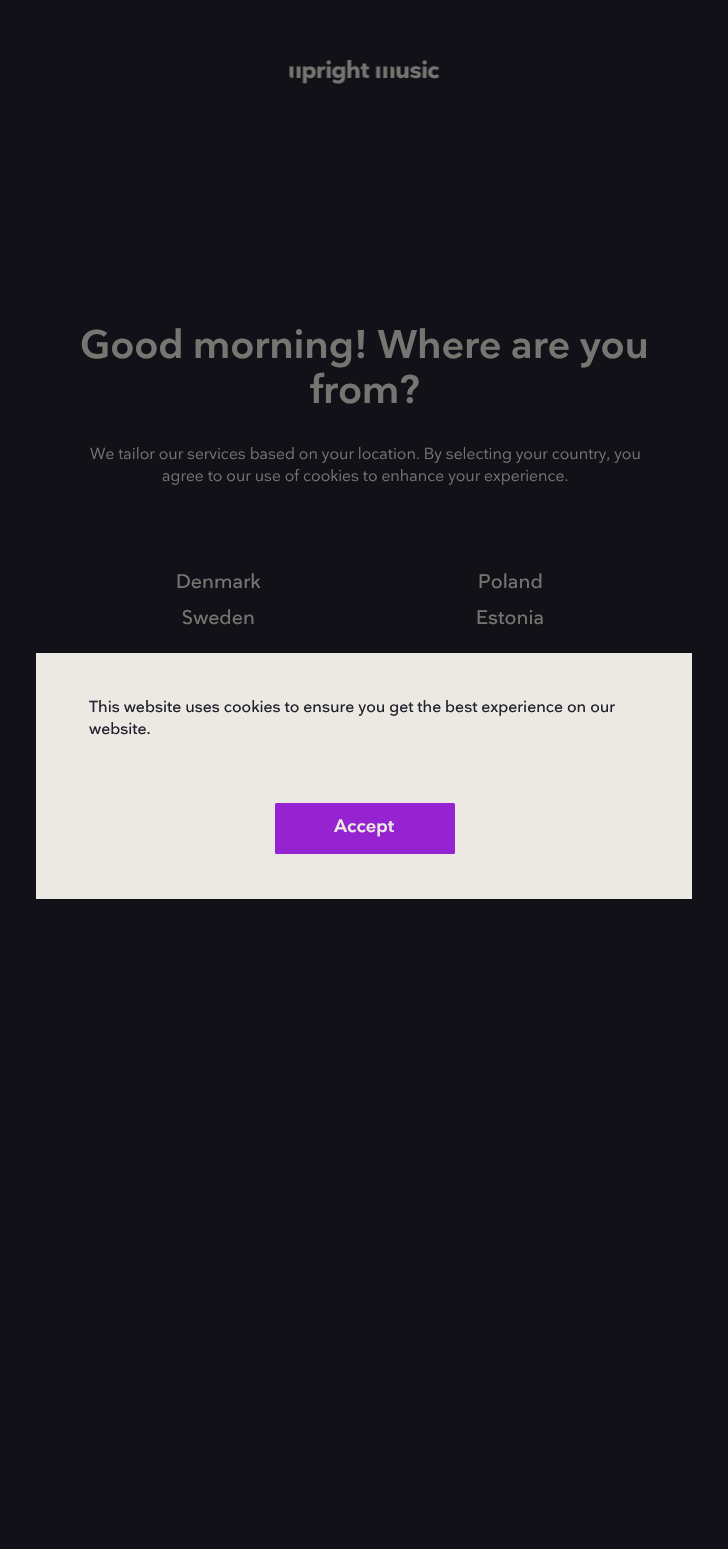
#include "include/core/SkBlurTypes.h"
#include "include/core/SkCanvas.h"
#include "include/core/SkData.h"
#include "include/core/SkFont.h"
#include "include/core/SkFontMgr.h"
#include "include/core/SkImage.h"
#include "include/core/SkMaskFilter.h"
#include "include/core/SkPaint.h"
#include "include/core/SkPathBuilder.h"
#include "include/core/SkTextBlob.h"
#include "include/effects/SkDashPathEffect.h"
#include "include/effects/SkGradientShader.h"
#include "include/utils/SkParsePath.h"

extern sk_sp<SkFontMgr> fontMgr;

static SkFont font(const char* family, int weight, float size, bool italic = false) {
    SkFontStyle style(weight, SkFontStyle::kNormal_Width,
        italic ? SkFontStyle::kItalic_Slant : SkFontStyle::kUpright_Slant);
    SkFont result(fontMgr->matchFamilyStyle(family, style), size);
    result.setSubpixel(true);
    return result;
}

static void drawLabel(SkCanvas* canvas, const char* s, float x, float y, const SkFont& font, SkColor color) {
    SkPaint ink(SkColor4f::FromColor(color));
    ink.setAntiAlias(true);
    canvas->drawString(s, x, y, font, ink);
}

static void drawTracked(SkCanvas* canvas, const char* s, float x, float y, const SkFont& font, const SkPaint& ink, float letter, float word) {
    std::vector<SkGlyphID> glyphs(font.countText(s, strlen(s), SkTextEncoding::kUTF8));
    std::vector<float> xs(glyphs.size());
    font.textToGlyphs(s, strlen(s), SkTextEncoding::kUTF8, glyphs);
    font.getXPos(glyphs, xs, x);
    float extra = 0;
    for (size_t i = 0; i < glyphs.size(); i++) {
        xs[i] += extra;
        extra += letter + word * (glyphs[i] == font.unicharToGlyph(' '));
    }
    canvas->drawTextBlob(SkTextBlob::MakeFromPosHGlyphs(glyphs, xs, y, font), 0, 0, ink);
}

static void fillRect(SkCanvas* canvas, float x, float y, float w, float h, SkColor color) {
    SkPaint ink(SkColor4f::FromColor(color));
    ink.setAntiAlias(true);
    canvas->drawRect(SkRect::MakeXYWH(x, y, w, h), ink);
}

static void fillRRect(SkCanvas* canvas, float x, float y, float w, float h, float radius, SkColor color) {
    SkPaint ink(SkColor4f::FromColor(color));
    ink.setAntiAlias(true);
    canvas->drawRoundRect(SkRect::MakeXYWH(x, y, w, h), radius, radius, ink);
}

static void drawPhoto(SkCanvas* canvas, const char* path, float x, float y, float w, float h) {
    auto image = SkImages::DeferredFromEncodedData(SkData::MakeFromFileName(path));
    canvas->drawImageRect(image, SkRect::MakeXYWH(x, y, w, h), SkSamplingOptions());
}

void draw(SkCanvas* canvas) {
    SkPaint paint;
    paint.setAntiAlias(true);
    canvas->clear(0xFF111117);
    drawPhoto(canvas, "assets/img1.png", 289, 60, 151, 24);
    SkFont font1 = font("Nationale", 600, 39.4f);
    paint.setColor(0xFF767571);
    drawTracked(canvas, "Good morning! Where are you", 80, 358, font1, paint, -0.25f, 0);
    drawTracked(canvas, "from?", 310, 403, font1, paint, -0.25f, 0);
    SkFont font2 = font("Nationale", 400, 15.75f);
    drawLabel(canvas, "We tailor our services based on your location. By selecting your country, you", 90, 459, font2, 0xFF767571);
    drawLabel(canvas, "agree to our use of cookies to enhance your experience.", 162, 481, font2, 0xFF767571);
    SkFont font3 = font("Nationale", 500, 19.5f);
    drawLabel(canvas, "Denmark", 176, 588, font3, 0xFF767571);
    drawLabel(canvas, "Sweden", 182, 624, font3, 0xFF767571);
    drawLabel(canvas, "Poland", 478, 588, font3, 0xFF767571);
    drawLabel(canvas, "Estonia", 476, 624, font3, 0xFF767571);
    fillRect(canvas, 36, 653, 656, 246, 0xFFECE9E2);
    SkFont font4 = font("Nationale", 500, 15.75f);
    drawLabel(canvas, "This website uses cookies to ensure you get the best experience on our", 89, 712, font4, 0xFF22222E);
    drawLabel(canvas, "website.", 89, 734, font4, 0xFF22222E);
    fillRRect(canvas, 275, 803, 180, 51, 1.5f, 0xFF9623D2);
    SkFont font5 = font("Nationale", 600, 18);
    drawLabel(canvas, "Accept", 334, 832, font5, 0xFFECE9E2);
}
